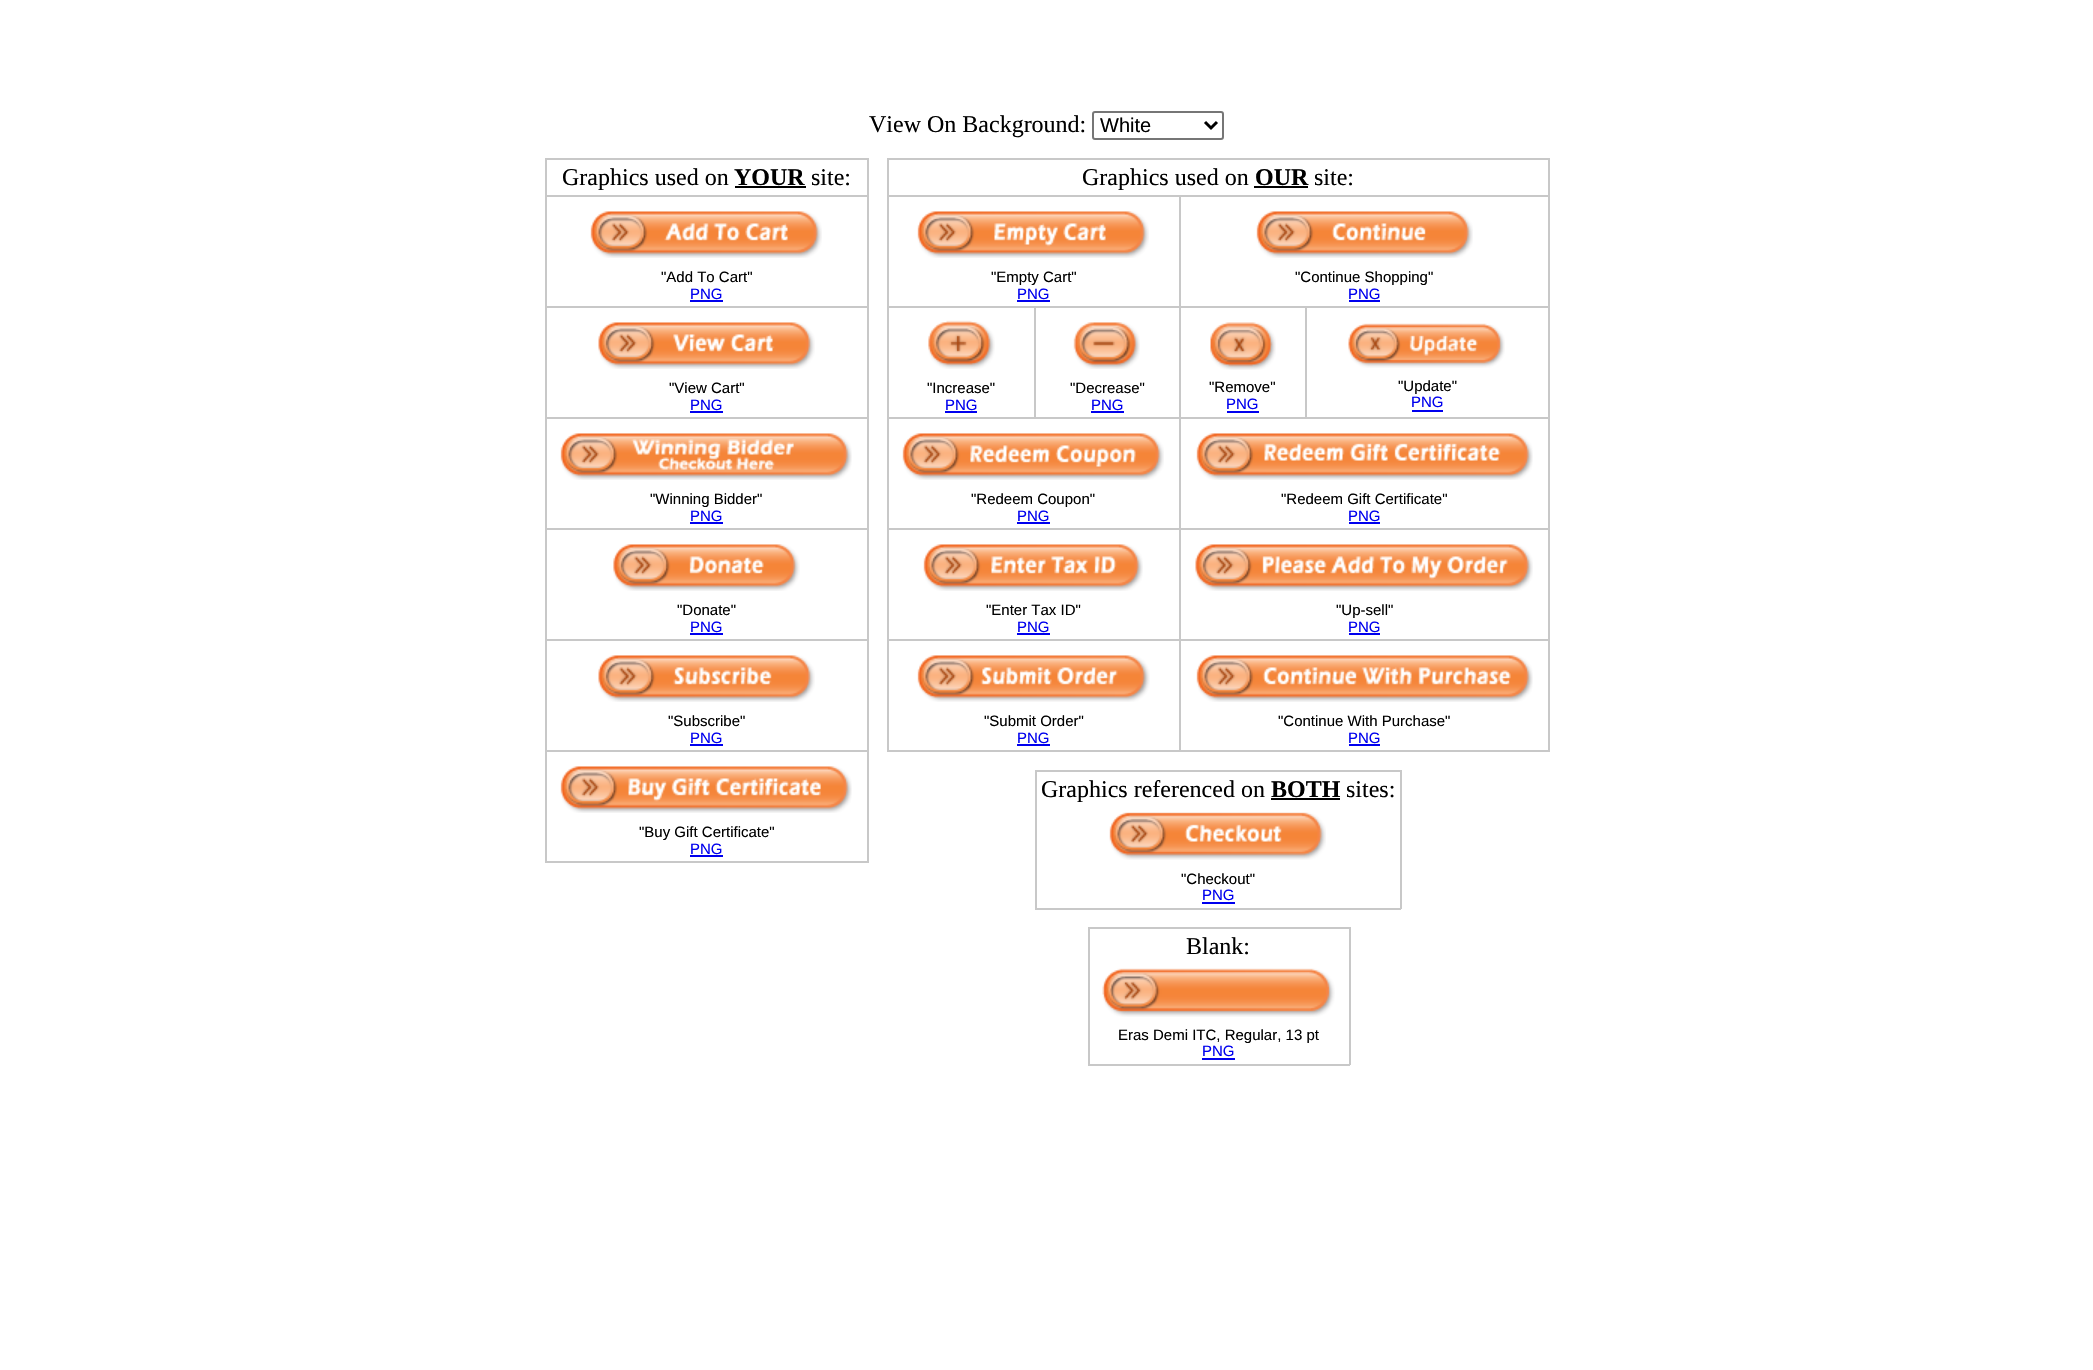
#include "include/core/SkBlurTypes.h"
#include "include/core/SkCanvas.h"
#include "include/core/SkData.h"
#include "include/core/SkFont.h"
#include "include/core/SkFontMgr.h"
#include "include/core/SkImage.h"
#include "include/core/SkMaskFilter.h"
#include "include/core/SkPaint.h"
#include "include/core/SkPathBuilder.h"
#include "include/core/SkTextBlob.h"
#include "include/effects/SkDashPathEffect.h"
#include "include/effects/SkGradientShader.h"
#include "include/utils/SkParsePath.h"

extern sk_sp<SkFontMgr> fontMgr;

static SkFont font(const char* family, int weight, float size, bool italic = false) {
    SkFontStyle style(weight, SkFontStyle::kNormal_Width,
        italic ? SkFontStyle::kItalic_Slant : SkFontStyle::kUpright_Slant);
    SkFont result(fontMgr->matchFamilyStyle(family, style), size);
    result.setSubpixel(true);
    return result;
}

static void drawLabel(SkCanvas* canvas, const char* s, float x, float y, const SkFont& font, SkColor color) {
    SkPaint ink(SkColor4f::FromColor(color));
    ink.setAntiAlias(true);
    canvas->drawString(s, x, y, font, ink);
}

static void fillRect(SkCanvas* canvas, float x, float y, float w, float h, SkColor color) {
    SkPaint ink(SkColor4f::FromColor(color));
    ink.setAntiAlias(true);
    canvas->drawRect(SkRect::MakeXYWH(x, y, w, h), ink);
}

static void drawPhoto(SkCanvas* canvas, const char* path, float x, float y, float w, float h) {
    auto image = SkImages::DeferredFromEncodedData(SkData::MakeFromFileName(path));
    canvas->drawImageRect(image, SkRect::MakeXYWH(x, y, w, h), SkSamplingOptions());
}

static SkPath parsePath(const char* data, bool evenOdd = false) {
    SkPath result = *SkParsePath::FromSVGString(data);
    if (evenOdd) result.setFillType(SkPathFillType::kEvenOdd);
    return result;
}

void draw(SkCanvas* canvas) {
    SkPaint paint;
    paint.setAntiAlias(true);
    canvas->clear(0xFFFFFFFF);
    SkFont font1 = font("Liberation Serif", 400, 24);
    drawLabel(canvas, "View On Background:", 869, 132, font1, 0xFF000000);
    paint.setStroke(true);
    paint.setStrokeWidth(2);
    paint.setColor(0xFF767676);
    canvas->drawRoundRect(SkRect::MakeXYWH(1093, 112, 130, 27), 2, 2, paint);
    paint.setStrokeWidth(3);
    paint.setColor(0xFF000000);
    canvas->drawPath(parsePath("M1205 122L1211 128L1217 122"), paint);
    SkFont font2 = font("Liberation Sans", 400, 20);
    drawLabel(canvas, "White", 1100, 132, font2, 0xFF000000);
    fillRect(canvas, 545, 158, 324, 2, 0xFFC8C8C8);
    fillRect(canvas, 545, 195, 324, 2, 0xFFC8C8C8);
    fillRect(canvas, 545, 306, 324, 2, 0xFFC8C8C8);
    fillRect(canvas, 545, 417, 324, 2, 0xFFC8C8C8);
    fillRect(canvas, 545, 528, 324, 2, 0xFFC8C8C8);
    fillRect(canvas, 545, 639, 324, 2, 0xFFC8C8C8);
    fillRect(canvas, 545, 750, 324, 2, 0xFFC8C8C8);
    fillRect(canvas, 867, 750, 2, 113, 0xFFC8C8C8);
    fillRect(canvas, 867, 639, 2, 113, 0xFFC8C8C8);
    fillRect(canvas, 867, 528, 2, 113, 0xFFC8C8C8);
    fillRect(canvas, 867, 417, 2, 113, 0xFFC8C8C8);
    fillRect(canvas, 867, 306, 2, 113, 0xFFC8C8C8);
    fillRect(canvas, 867, 195, 2, 113, 0xFFC8C8C8);
    fillRect(canvas, 867, 158, 2, 39, 0xFFC8C8C8);
    fillRect(canvas, 545, 861, 324, 2, 0xFFC8C8C8);
    fillRect(canvas, 545, 750, 2, 113, 0xFFC8C8C8);
    fillRect(canvas, 545, 639, 2, 113, 0xFFC8C8C8);
    fillRect(canvas, 545, 528, 2, 113, 0xFFC8C8C8);
    fillRect(canvas, 545, 417, 2, 113, 0xFFC8C8C8);
    fillRect(canvas, 545, 306, 2, 113, 0xFFC8C8C8);
    fillRect(canvas, 545, 195, 2, 113, 0xFFC8C8C8);
    fillRect(canvas, 545, 158, 2, 39, 0xFFC8C8C8);
    drawLabel(canvas, "Graphics used on", 562, 185, font1, 0xFF000000);
    SkFont font3 = font("Liberation Serif", 700, 24);
    drawLabel(canvas, "YOUR", 734, 185, font3, 0xFF000000);
    fillRect(canvas, 735, 186, 71, 2, 0xFF000000);
    drawLabel(canvas, "site:", 811, 185, font1, 0xFF000000);
    drawPhoto(canvas, "assets/img1.png", 590, 211, 232, 47);
    SkFont font4 = font("Liberation Sans", 400, 15);
    drawLabel(canvas, "\"Add To Cart\"", 661, 282, font4, 0xFF000000);
    drawLabel(canvas, "PNG", 690, 299, font4, 0xFF0000EE);
    fillRect(canvas, 690, 300, 33, 2, 0xFF0000EE);
    drawPhoto(canvas, "assets/img2.png", 598, 322, 217, 47);
    drawLabel(canvas, "\"View Cart\"", 669, 393, font4, 0xFF000000);
    drawLabel(canvas, "PNG", 690, 410, font4, 0xFF0000EE);
    fillRect(canvas, 690, 411, 33, 2, 0xFF0000EE);
    drawPhoto(canvas, "assets/img3.png", 560, 433, 292, 47);
    drawLabel(canvas, "\"Winning Bidder\"", 650, 504, font4, 0xFF000000);
    drawLabel(canvas, "PNG", 690, 521, font4, 0xFF0000EE);
    fillRect(canvas, 690, 522, 33, 2, 0xFF0000EE);
    drawPhoto(canvas, "assets/img4.png", 613, 544, 187, 47);
    drawLabel(canvas, "\"Donate\"", 677, 615, font4, 0xFF000000);
    drawLabel(canvas, "PNG", 690, 632, font4, 0xFF0000EE);
    fillRect(canvas, 690, 633, 33, 2, 0xFF0000EE);
    drawPhoto(canvas, "assets/img5.png", 598, 655, 217, 47);
    drawLabel(canvas, "\"Subscribe\"", 668, 726, font4, 0xFF000000);
    drawLabel(canvas, "PNG", 690, 743, font4, 0xFF0000EE);
    fillRect(canvas, 690, 744, 33, 2, 0xFF0000EE);
    drawPhoto(canvas, "assets/img6.png", 560, 766, 292, 47);
    drawLabel(canvas, "\"Buy Gift Certificate\"", 639, 837, font4, 0xFF000000);
    drawLabel(canvas, "PNG", 690, 854, font4, 0xFF0000EE);
    fillRect(canvas, 690, 855, 33, 2, 0xFF0000EE);
    fillRect(canvas, 887, 158, 663, 2, 0xFFC8C8C8);
    fillRect(canvas, 1179, 195, 371, 2, 0xFFC8C8C8);
    fillRect(canvas, 1305, 306, 245, 2, 0xFFC8C8C8);
    fillRect(canvas, 1179, 417, 371, 2, 0xFFC8C8C8);
    fillRect(canvas, 1179, 528, 371, 2, 0xFFC8C8C8);
    fillRect(canvas, 1179, 639, 371, 2, 0xFFC8C8C8);
    fillRect(canvas, 1548, 639, 2, 113, 0xFFC8C8C8);
    fillRect(canvas, 1548, 528, 2, 113, 0xFFC8C8C8);
    fillRect(canvas, 1548, 417, 2, 113, 0xFFC8C8C8);
    fillRect(canvas, 1548, 306, 2, 113, 0xFFC8C8C8);
    fillRect(canvas, 1548, 195, 2, 113, 0xFFC8C8C8);
    fillRect(canvas, 1548, 158, 2, 39, 0xFFC8C8C8);
    fillRect(canvas, 1305, 306, 2, 113, 0xFFC8C8C8);
    fillRect(canvas, 1179, 306, 128, 2, 0xFFC8C8C8);
    fillRect(canvas, 1179, 750, 371, 2, 0xFFC8C8C8);
    fillRect(canvas, 1179, 639, 2, 113, 0xFFC8C8C8);
    fillRect(canvas, 887, 639, 294, 2, 0xFFC8C8C8);
    fillRect(canvas, 1179, 528, 2, 113, 0xFFC8C8C8);
    fillRect(canvas, 887, 528, 294, 2, 0xFFC8C8C8);
    fillRect(canvas, 1179, 417, 2, 113, 0xFFC8C8C8);
    fillRect(canvas, 887, 417, 294, 2, 0xFFC8C8C8);
    fillRect(canvas, 1179, 306, 2, 113, 0xFFC8C8C8);
    fillRect(canvas, 1034, 306, 147, 2, 0xFFC8C8C8);
    fillRect(canvas, 1179, 195, 2, 113, 0xFFC8C8C8);
    fillRect(canvas, 887, 195, 294, 2, 0xFFC8C8C8);
    fillRect(canvas, 1034, 306, 2, 113, 0xFFC8C8C8);
    fillRect(canvas, 887, 306, 148, 2, 0xFFC8C8C8);
    fillRect(canvas, 887, 750, 294, 2, 0xFFC8C8C8);
    fillRect(canvas, 887, 639, 2, 113, 0xFFC8C8C8);
    fillRect(canvas, 887, 528, 2, 113, 0xFFC8C8C8);
    fillRect(canvas, 887, 417, 2, 113, 0xFFC8C8C8);
    fillRect(canvas, 887, 306, 2, 113, 0xFFC8C8C8);
    fillRect(canvas, 887, 195, 2, 113, 0xFFC8C8C8);
    fillRect(canvas, 887, 158, 2, 39, 0xFFC8C8C8);
    drawLabel(canvas, "Graphics used on", 1082, 185, font1, 0xFF000000);
    drawLabel(canvas, "OUR", 1255, 185, font3, 0xFF000000);
    fillRect(canvas, 1254, 186, 54, 2, 0xFF000000);
    drawLabel(canvas, "site:", 1314, 185, font1, 0xFF000000);
    drawPhoto(canvas, "assets/img7.png", 917, 211, 232, 47);
    drawLabel(canvas, "\"Empty Cart\"", 991, 282, font4, 0xFF000000);
    drawLabel(canvas, "PNG", 1017, 299, font4, 0xFF0000EE);
    fillRect(canvas, 1017, 300, 33, 2, 0xFF0000EE);
    drawPhoto(canvas, "assets/img8.png", 1256, 211, 217, 47);
    drawLabel(canvas, "\"Continue Shopping\"", 1295, 282, font4, 0xFF000000);
    drawLabel(canvas, "PNG", 1348, 299, font4, 0xFF0000EE);
    fillRect(canvas, 1349, 300, 31, 2, 0xFF0000EE);
    drawPhoto(canvas, "assets/img9.png", 928, 320, 67, 49);
    drawLabel(canvas, "\"Increase\"", 927, 393, font4, 0xFF000000);
    drawLabel(canvas, "PNG", 945, 410, font4, 0xFF0000EE);
    fillRect(canvas, 945, 411, 32, 2, 0xFF0000EE);
    drawPhoto(canvas, "assets/img10.png", 1073, 322, 67, 47);
    drawLabel(canvas, "\"Decrease\"", 1070, 393, font4, 0xFF000000);
    drawLabel(canvas, "PNG", 1091, 410, font4, 0xFF0000EE);
    fillRect(canvas, 1091, 411, 33, 2, 0xFF0000EE);
    drawPhoto(canvas, "assets/img11.png", 1210, 322, 66, 48);
    drawLabel(canvas, "\"Remove\"", 1209, 392, font4, 0xFF000000);
    drawLabel(canvas, "PNG", 1226, 409, font4, 0xFF0000EE);
    fillRect(canvas, 1227, 411, 32, 2, 0xFF0000EE);
    drawPhoto(canvas, "assets/img12.png", 1348, 323, 157, 45);
    drawLabel(canvas, "\"Update\"", 1398, 391, font4, 0xFF000000);
    drawLabel(canvas, "PNG", 1411, 407, font4, 0xFF0000EE);
    fillRect(canvas, 1412, 410, 31, 2, 0xFF0000EE);
    drawPhoto(canvas, "assets/img13.png", 902, 433, 262, 47);
    drawLabel(canvas, "\"Redeem Coupon\"", 971, 504, font4, 0xFF000000);
    drawLabel(canvas, "PNG", 1017, 521, font4, 0xFF0000EE);
    fillRect(canvas, 1017, 522, 33, 2, 0xFF0000EE);
    drawPhoto(canvas, "assets/img14.png", 1196, 433, 337, 47);
    drawLabel(canvas, "\"Redeem Gift Certificate\"", 1281, 504, font4, 0xFF000000);
    drawLabel(canvas, "PNG", 1348, 521, font4, 0xFF0000EE);
    fillRect(canvas, 1349, 522, 31, 2, 0xFF0000EE);
    drawPhoto(canvas, "assets/img15.png", 923, 544, 220, 47);
    drawLabel(canvas, "\"Enter Tax ID\"", 986, 615, font4, 0xFF000000);
    drawLabel(canvas, "PNG", 1017, 632, font4, 0xFF0000EE);
    fillRect(canvas, 1017, 633, 33, 2, 0xFF0000EE);
    drawPhoto(canvas, "assets/img16.png", 1195, 544, 338, 47);
    drawLabel(canvas, "\"Up-sell\"", 1336, 615, font4, 0xFF000000);
    drawLabel(canvas, "PNG", 1348, 632, font4, 0xFF0000EE);
    fillRect(canvas, 1349, 633, 31, 2, 0xFF0000EE);
    drawPhoto(canvas, "assets/img17.png", 917, 655, 233, 47);
    drawLabel(canvas, "\"Submit Order\"", 984, 726, font4, 0xFF000000);
    drawLabel(canvas, "PNG", 1017, 743, font4, 0xFF0000EE);
    fillRect(canvas, 1017, 744, 33, 2, 0xFF0000EE);
    drawPhoto(canvas, "assets/img18.png", 1196, 655, 337, 47);
    drawLabel(canvas, "\"Continue With Purchase\"", 1278, 726, font4, 0xFF000000);
    drawLabel(canvas, "PNG", 1348, 743, font4, 0xFF0000EE);
    fillRect(canvas, 1349, 744, 31, 2, 0xFF0000EE);
    fillRect(canvas, 1035, 770, 366, 2, 0xFFC8C8C8);
    fillRect(canvas, 1400, 770, 2, 139, 0xFFC8C8C8);
    fillRect(canvas, 1035, 908, 366, 2, 0xFFC8C8C8);
    fillRect(canvas, 1035, 770, 2, 139, 0xFFC8C8C8);
    drawLabel(canvas, "Graphics referenced on", 1041, 797, font1, 0xFF000000);
    drawLabel(canvas, "BOTH", 1271, 797, font3, 0xFF000000);
    fillRect(canvas, 1271, 798, 69, 2, 0xFF000000);
    drawLabel(canvas, "sites:", 1346, 797, font1, 0xFF000000);
    drawPhoto(canvas, "assets/img19.png", 1109, 812, 217, 48);
    drawLabel(canvas, "\"Checkout\"", 1181, 884, font4, 0xFF000000);
    drawLabel(canvas, "PNG", 1202, 900, font4, 0xFF0000EE);
    fillRect(canvas, 1202, 902, 33, 2, 0xFF0000EE);
    fillRect(canvas, 1088, 927, 262, 2, 0xFFC8C8C8);
    fillRect(canvas, 1349, 927, 2, 138, 0xFFC8C8C8);
    fillRect(canvas, 1088, 1064, 262, 2, 0xFFC8C8C8);
    fillRect(canvas, 1088, 927, 2, 138, 0xFFC8C8C8);
    drawLabel(canvas, "Blank:", 1186, 954, font1, 0xFF000000);
    drawPhoto(canvas, "assets/img20.png", 1102, 968, 233, 49);
    drawLabel(canvas, "Eras Demi ITC, Regular, 13 pt", 1118, 1040, font4, 0xFF000000);
    drawLabel(canvas, "PNG", 1202, 1056, font4, 0xFF0000EE);
    fillRect(canvas, 1202, 1058, 33, 2, 0xFF0000EE);
}
